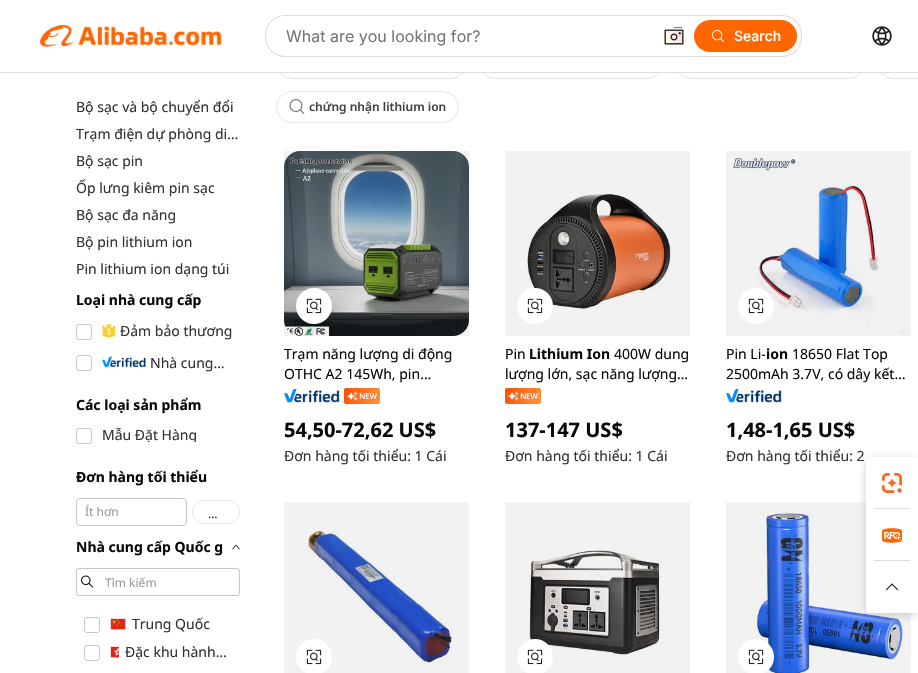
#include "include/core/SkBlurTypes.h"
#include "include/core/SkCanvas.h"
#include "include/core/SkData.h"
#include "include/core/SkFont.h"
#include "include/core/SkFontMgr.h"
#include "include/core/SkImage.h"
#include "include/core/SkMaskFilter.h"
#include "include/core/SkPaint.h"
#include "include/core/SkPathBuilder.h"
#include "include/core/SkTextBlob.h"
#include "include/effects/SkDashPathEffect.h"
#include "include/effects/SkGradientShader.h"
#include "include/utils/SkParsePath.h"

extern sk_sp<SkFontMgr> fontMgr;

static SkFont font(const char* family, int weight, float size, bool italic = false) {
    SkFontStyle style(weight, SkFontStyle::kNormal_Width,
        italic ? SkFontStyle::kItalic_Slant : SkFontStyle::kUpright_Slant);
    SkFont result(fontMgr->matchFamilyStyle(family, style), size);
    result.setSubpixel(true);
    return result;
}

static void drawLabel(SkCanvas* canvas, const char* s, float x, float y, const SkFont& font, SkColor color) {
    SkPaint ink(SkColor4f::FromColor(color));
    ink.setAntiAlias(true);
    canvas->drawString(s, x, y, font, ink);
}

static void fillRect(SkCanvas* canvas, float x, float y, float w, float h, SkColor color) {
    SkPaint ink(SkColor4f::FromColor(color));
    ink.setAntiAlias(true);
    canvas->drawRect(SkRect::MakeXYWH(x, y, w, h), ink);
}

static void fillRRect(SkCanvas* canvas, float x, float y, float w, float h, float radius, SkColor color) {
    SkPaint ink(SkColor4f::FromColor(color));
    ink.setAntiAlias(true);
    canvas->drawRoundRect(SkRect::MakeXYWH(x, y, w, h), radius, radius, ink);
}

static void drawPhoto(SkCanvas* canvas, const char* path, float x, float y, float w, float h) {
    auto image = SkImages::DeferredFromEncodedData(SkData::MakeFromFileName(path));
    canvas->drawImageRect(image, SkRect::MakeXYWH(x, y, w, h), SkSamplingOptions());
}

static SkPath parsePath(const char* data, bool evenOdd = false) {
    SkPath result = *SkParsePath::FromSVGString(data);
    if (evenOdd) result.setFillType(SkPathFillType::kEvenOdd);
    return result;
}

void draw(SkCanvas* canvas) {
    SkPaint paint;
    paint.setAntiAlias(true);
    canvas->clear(0xFFFFFFFF);
    paint.setStroke(true);
    paint.setStrokeWidth(1);
    paint.setColor(0xFFE7E5E4);
    canvas->drawRoundRect(SkRect::MakeXYWH(276.5f, 47.5f, 190, 31), 15.5f, 15.5f, paint);
    canvas->drawRoundRect(SkRect::MakeXYWH(479.5f, 47.5f, 183, 31), 15.5f, 15.5f, paint);
    canvas->drawRoundRect(SkRect::MakeXYWH(675.5f, 47.5f, 189, 31), 15.5f, 15.5f, paint);
    canvas->drawRoundRect(SkRect::MakeXYWH(877.5f, 47.5f, 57, 31), 15.5f, 15.5f, paint);
    fillRect(canvas, 276, 47, 642, 25, 0xFFFFFFFF);
    fillRect(canvas, 0, 72, 918, 1, 0xFFDDDDDD);
    drawPhoto(canvas, "assets/img1.png", 40, 25, 182, 22);
    fillRRect(canvas, 265, 15, 537, 42, 20, 0xFFDDDDDD);
    fillRRect(canvas, 266, 16, 535, 40, 19, 0xFFFFFFFF);
    SkFont font1 = font("Inter", 400, 16);
    drawLabel(canvas, "What are you looking for?", 286, 42, font1, 0xFF767676);
    drawPhoto(canvas, "assets/img2.png", 664, 27, 20, 18);
    fillRRect(canvas, 694, 20, 103, 32, 16, 0xFFFF6600);
    drawPhoto(canvas, "assets/img3.png", 712, 30, 12, 12);
    SkFont font2 = font("Inter", 500, 14);
    drawLabel(canvas, "Search", 734, 41, font2, 0xFFFFFFFF);
    drawPhoto(canvas, "assets/img4.png", 872, 26, 20, 20);
    SkFont font3 = font("Noto Sans", 400, 14);
    drawLabel(canvas, "Bộ sạc và bộ chuyển đổi", 76, 112, font3, 0xFF333333);
    drawLabel(canvas, "Trạm điện dự phòng di…", 76, 139, font3, 0xFF333333);
    drawLabel(canvas, "Bộ sạc pin", 76, 166, font3, 0xFF333333);
    drawLabel(canvas, "Ốp lưng kiêm pin sạc", 76, 193, font3, 0xFF333333);
    drawLabel(canvas, "Bộ sạc đa năng", 76, 220, font3, 0xFF333333);
    drawLabel(canvas, "Bộ pin lithium ion", 76, 247, font3, 0xFF333333);
    drawLabel(canvas, "Pin lithium ion dạng túi", 76, 274, font3, 0xFF333333);
    SkFont font4 = font("Noto Sans", 700, 14);
    drawLabel(canvas, "Loại nhà cung cấp", 76, 305, font4, 0xFF0C0A09);
    paint.setColor(0xFFC4C6CF);
    canvas->drawRoundRect(SkRect::MakeXYWH(76.5f, 324.5f, 15, 15), 2.5f, 2.5f, paint);
    drawPhoto(canvas, "assets/img5.png", 102, 324, 14, 14);
    drawLabel(canvas, "Đảm bảo thương", 120, 336, font3, 0xFF333333);
    canvas->drawRoundRect(SkRect::MakeXYWH(76.5f, 355.5f, 15, 15), 2.5f, 2.5f, paint);
    drawPhoto(canvas, "assets/img6.png", 102, 356, 44, 12);
    drawLabel(canvas, "Nhà cung…", 150, 368, font3, 0xFF333333);
    drawLabel(canvas, "Các loại sản phẩm", 76, 410, font4, 0xFF0C0A09);
    canvas->drawRoundRect(SkRect::MakeXYWH(76.5f, 428.5f, 15, 15), 2.5f, 2.5f, paint);
    canvas->save();
    canvas->clipRect(SkRect::MakeXYWH(102, 428, 95, 14));
    drawLabel(canvas, "Mẫu Đặt Hàng", 102, 440, font3, 0xFF333333);
    canvas->restore();
    drawLabel(canvas, "Đơn hàng tối thiểu", 76, 482, font4, 0xFF0C0A09);
    canvas->drawRoundRect(SkRect::MakeXYWH(76.5f, 498.5f, 110, 27), 3.5f, 3.5f, paint);
    SkFont font5 = font("Noto Sans", 400, 12);
    drawLabel(canvas, "Ít hơn", 85, 516, font5, 0xFF999999);
    paint.setColor(0xFFE7E5E4);
    canvas->drawRoundRect(SkRect::MakeXYWH(192.5f, 500.5f, 47, 23), 11.5f, 11.5f, paint);
    drawLabel(canvas, "…", 208, 518, font5, 0xFF333333);
    drawLabel(canvas, "Nhà cung cấp Quốc g", 76, 552, font4, 0xFF0C0A09);
    drawPhoto(canvas, "assets/img7.png", 232, 544, 8, 6);
    paint.setColor(0xFFC4C6CF);
    canvas->drawRoundRect(SkRect::MakeXYWH(76.5f, 568.5f, 163, 27), 2.5f, 2.5f, paint);
    drawPhoto(canvas, "assets/img8.png", 81, 575, 12, 13);
    drawLabel(canvas, "Tìm kiếm", 105, 587, font5, 0xFF999999);
    canvas->drawRoundRect(SkRect::MakeXYWH(84.5f, 617.5f, 15, 15), 2.5f, 2.5f, paint);
    drawPhoto(canvas, "assets/img9.png", 110, 618, 16, 12);
    drawLabel(canvas, "Trung Quốc", 132, 629, font3, 0xFF333333);
    canvas->drawRoundRect(SkRect::MakeXYWH(84.5f, 645.5f, 15, 15), 2.5f, 2.5f, paint);
    drawPhoto(canvas, "assets/img10.png", 110, 646, 9, 12);
    drawLabel(canvas, "Đặc khu hành…", 125, 657, font3, 0xFF333333);
    paint.setColor(0xFFE7E5E4);
    canvas->drawRoundRect(SkRect::MakeXYWH(276.5f, 91.5f, 182, 31), 15.5f, 15.5f, paint);
    drawPhoto(canvas, "assets/img11.png", 289, 99, 16, 15);
    SkFont font6 = font("Noto Sans", 600, 12);
    drawLabel(canvas, "chứng nhận lithium ion", 309, 111, font6, 0xFF444444);
    drawPhoto(canvas, "assets/img12.png", 284, 151, 185, 185);
    fillRect(canvas, 284, 151, 185, 185, 0x0D000000);
    paint.setStroke(false);
    paint.setColor(0xFFFFFFFF);
    canvas->drawCircle(314, 306, 18, paint);
    drawPhoto(canvas, "assets/img13.png", 306, 298, 16, 16);
    drawLabel(canvas, "Trạm năng lượng di động", 284, 359, font3, 0xFF0C0A09);
    drawLabel(canvas, "OTHC A2 145Wh, pin…", 284, 379, font3, 0xFF0C0A09);
    drawPhoto(canvas, "assets/img14.png", 284, 389, 56, 14);
    drawPhoto(canvas, "assets/img15.png", 344, 388, 36, 16);
    SkFont font7 = font("Noto Sans", 700, 20);
    drawLabel(canvas, "54,50-72,62 US$", 284, 437, font7, 0xFF0C0A09);
    drawLabel(canvas, "Đơn hàng tối thiểu: 1 Cái", 284, 461, font3, 0xFF333333);
    drawPhoto(canvas, "assets/img16.png", 527, 193, 144, 116);
    fillRect(canvas, 505, 151, 185, 185, 0x0D000000);
    canvas->drawCircle(535, 306, 18, paint);
    drawPhoto(canvas, "assets/img13.png", 527, 298, 16, 16);
    drawLabel(canvas, "Pin", 505, 359, font3, 0xFF0C0A09);
    drawLabel(canvas, "Lithium Ion", 529, 359, font4, 0xFF0C0A09);
    drawLabel(canvas, "400W dung", 614, 359, font3, 0xFF0C0A09);
    drawLabel(canvas, "lượng lớn, sạc năng lượng…", 505, 379, font3, 0xFF0C0A09);
    drawPhoto(canvas, "assets/img15.png", 505, 388, 36, 16);
    drawLabel(canvas, "137-147 US$", 505, 437, font7, 0xFF0C0A09);
    drawLabel(canvas, "Đơn hàng tối thiểu: 1 Cái", 505, 461, font3, 0xFF333333);
    drawPhoto(canvas, "assets/img17.png", 733, 158, 174, 176);
    fillRect(canvas, 726, 151, 185, 185, 0x0D000000);
    canvas->drawCircle(756, 306, 18, paint);
    drawPhoto(canvas, "assets/img13.png", 748, 298, 16, 16);
    drawLabel(canvas, "Pin Li-", 726, 359, font3, 0xFF0C0A09);
    drawLabel(canvas, "ion", 766, 359, font4, 0xFF0C0A09);
    drawLabel(canvas, "18650 Flat Top", 792, 359, font3, 0xFF0C0A09);
    drawLabel(canvas, "2500mAh 3.7V, có dây kết…", 726, 379, font3, 0xFF0C0A09);
    drawPhoto(canvas, "assets/img14.png", 726, 389, 56, 14);
    drawLabel(canvas, "1,48-1,65 US$", 726, 437, font7, 0xFF0C0A09);
    drawLabel(canvas, "Đơn hàng tối thiểu: 2", 726, 461, font3, 0xFF333333);
    drawPhoto(canvas, "assets/img18.png", 306, 530, 146, 135);
    fillRect(canvas, 284, 502, 185, 171, 0x0D000000);
    canvas->drawCircle(314, 657, 18, paint);
    drawPhoto(canvas, "assets/img13.png", 306, 649, 16, 16);
    drawPhoto(canvas, "assets/img19.png", 529, 550, 132, 105);
    fillRect(canvas, 505, 502, 185, 171, 0x0D000000);
    canvas->drawCircle(535, 657, 18, paint);
    drawPhoto(canvas, "assets/img13.png", 527, 649, 16, 16);
    drawPhoto(canvas, "assets/img20.png", 756, 512, 148, 161);
    fillRect(canvas, 726, 502, 185, 171, 0x0D000000);
    canvas->drawCircle(756, 657, 18, paint);
    drawPhoto(canvas, "assets/img13.png", 748, 649, 16, 16);
    paint.setColor(0x1F000000);
    paint.setMaskFilter(SkMaskFilter::MakeBlur(kNormal_SkBlurStyle, 3));
    canvas->drawRoundRect(SkRect::MakeXYWH(864, 457, 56, 160), 10, 10, paint);
    paint.setMaskFilter(nullptr);
    paint.setColor(0xFFFFFFFF);
    canvas->drawPath(parsePath("M874 457H918V613H874C869.5 613 866 609.5 866 605V465C866 460.5 869.5 457 874 457Z"), paint);
    fillRRect(canvas, 866, 457, 52, 52, 4, 0xFFFFFFFF);
    drawPhoto(canvas, "assets/img21.png", 882, 473, 20, 20);
    fillRect(canvas, 874, 508, 36, 1, 0xFFDDDDDD);
    drawPhoto(canvas, "assets/img22.png", 882, 528, 20, 15);
    fillRect(canvas, 874, 560, 36, 1, 0xFFDDDDDD);
    fillRRect(canvas, 866, 561, 52, 52, 4, 0xFFFFFFFF);
    drawPhoto(canvas, "assets/img23.png", 885, 583, 14, 8);
}
